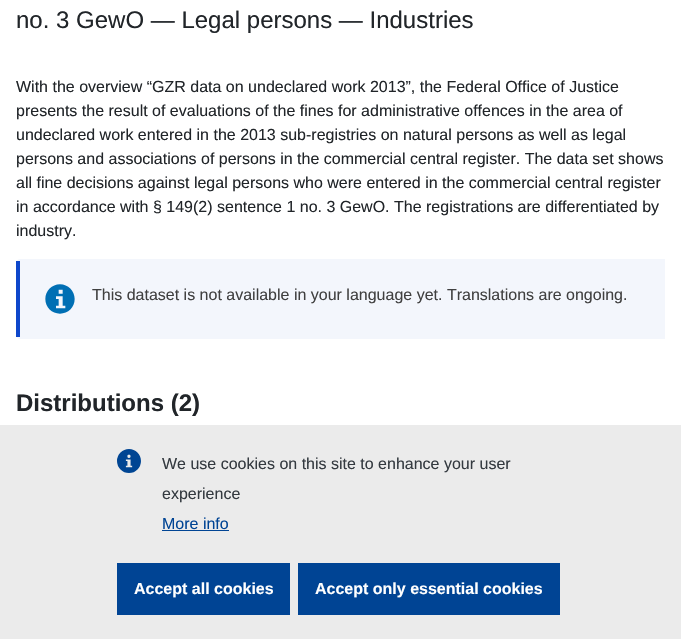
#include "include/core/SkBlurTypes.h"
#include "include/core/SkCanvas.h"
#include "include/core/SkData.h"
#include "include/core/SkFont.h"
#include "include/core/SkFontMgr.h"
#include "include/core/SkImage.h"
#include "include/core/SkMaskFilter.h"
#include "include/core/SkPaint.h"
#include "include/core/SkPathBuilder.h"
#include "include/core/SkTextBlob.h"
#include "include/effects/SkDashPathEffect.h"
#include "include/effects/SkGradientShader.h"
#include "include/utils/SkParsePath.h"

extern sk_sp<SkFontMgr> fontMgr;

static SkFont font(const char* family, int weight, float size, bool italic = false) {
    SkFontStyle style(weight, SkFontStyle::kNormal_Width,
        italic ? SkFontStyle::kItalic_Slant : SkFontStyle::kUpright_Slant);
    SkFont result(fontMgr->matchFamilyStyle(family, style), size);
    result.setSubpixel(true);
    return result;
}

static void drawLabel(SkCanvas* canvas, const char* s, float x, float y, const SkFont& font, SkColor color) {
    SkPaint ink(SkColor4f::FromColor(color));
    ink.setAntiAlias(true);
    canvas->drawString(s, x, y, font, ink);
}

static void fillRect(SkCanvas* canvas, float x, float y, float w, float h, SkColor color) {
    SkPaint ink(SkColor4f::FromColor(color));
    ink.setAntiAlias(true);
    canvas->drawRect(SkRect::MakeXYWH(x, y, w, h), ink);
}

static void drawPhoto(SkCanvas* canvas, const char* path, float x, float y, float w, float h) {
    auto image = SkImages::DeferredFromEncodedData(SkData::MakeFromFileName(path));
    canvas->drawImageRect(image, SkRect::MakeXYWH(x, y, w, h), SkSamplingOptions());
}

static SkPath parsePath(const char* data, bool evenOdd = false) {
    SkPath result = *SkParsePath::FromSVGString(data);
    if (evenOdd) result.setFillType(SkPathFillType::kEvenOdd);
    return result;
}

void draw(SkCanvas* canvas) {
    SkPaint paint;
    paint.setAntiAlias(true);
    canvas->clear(0xFFFFFFFF);
    SkFont font1 = font("Liberation Sans", 400, 24);
    drawLabel(canvas, "no. 3 GewO — Legal persons — Industries", 16, 28, font1, 0xFF212529);
    SkFont font2 = font("Liberation Sans", 400, 16);
    drawLabel(canvas, "With the overview “GZR data on undeclared work 2013”, the Federal Office of Justice", 16, 92, font2, 0xFF212529);
    drawLabel(canvas, "presents the result of evaluations of the fines for administrative offences in the area of", 16, 116, font2, 0xFF212529);
    drawLabel(canvas, "undeclared work entered in the 2013 sub-registries on natural persons as well as legal", 16, 140, font2, 0xFF212529);
    drawLabel(canvas, "persons and associations of persons in the commercial central register. The data set shows", 16, 164, font2, 0xFF212529);
    drawLabel(canvas, "all fine decisions against legal persons who were entered in the commercial central register", 16, 188, font2, 0xFF212529);
    drawLabel(canvas, "in accordance with § 149(2) sentence 1 no. 3 GewO. The registrations are differentiated by", 16, 212, font2, 0xFF212529);
    drawLabel(canvas, "industry.", 16, 236, font2, 0xFF212529);
    paint.setColor(0xFFF3F6FC);
    canvas->drawPath(parsePath("M20 259H665V339H20C18 339 16 337 16 335V263C16 261 18 259 20 259Z"), paint);
    fillRect(canvas, 16, 261, 4, 76, 0xFF0E47CB);
    drawPhoto(canvas, "assets/img1.png", 45, 284, 30, 30);
    drawLabel(canvas, "This dataset is not available in your language yet. Translations are ongoing.", 92, 300, font2, 0xFF404040);
    SkFont font3 = font("Liberation Sans", 700, 24);
    drawLabel(canvas, "Distributions (2)", 16, 411, font3, 0xFF212529);
    fillRect(canvas, 0, 425, 681, 214, 0xFFEBEBEB);
    drawPhoto(canvas, "assets/img2.png", 117, 449, 24, 24);
    drawLabel(canvas, "We use cookies on this site to enhance your user", 162, 469, font2, 0xFF343A40);
    drawLabel(canvas, "experience", 162, 499, font2, 0xFF343A40);
    drawLabel(canvas, "More info", 162, 529, font2, 0xFF004494);
    fillRect(canvas, 162, 530, 67, 1, 0xFF004494);
    fillRect(canvas, 117, 563, 173, 52, 0xFF004494);
    SkFont font4 = font("Liberation Sans", 700, 16);
    drawLabel(canvas, "Accept all cookies", 134, 594, font4, 0xFFFFFFFF);
    fillRect(canvas, 298, 563, 262, 52, 0xFF004494);
    drawLabel(canvas, "Accept only essential cookies", 315, 594, font4, 0xFFFFFFFF);
}
